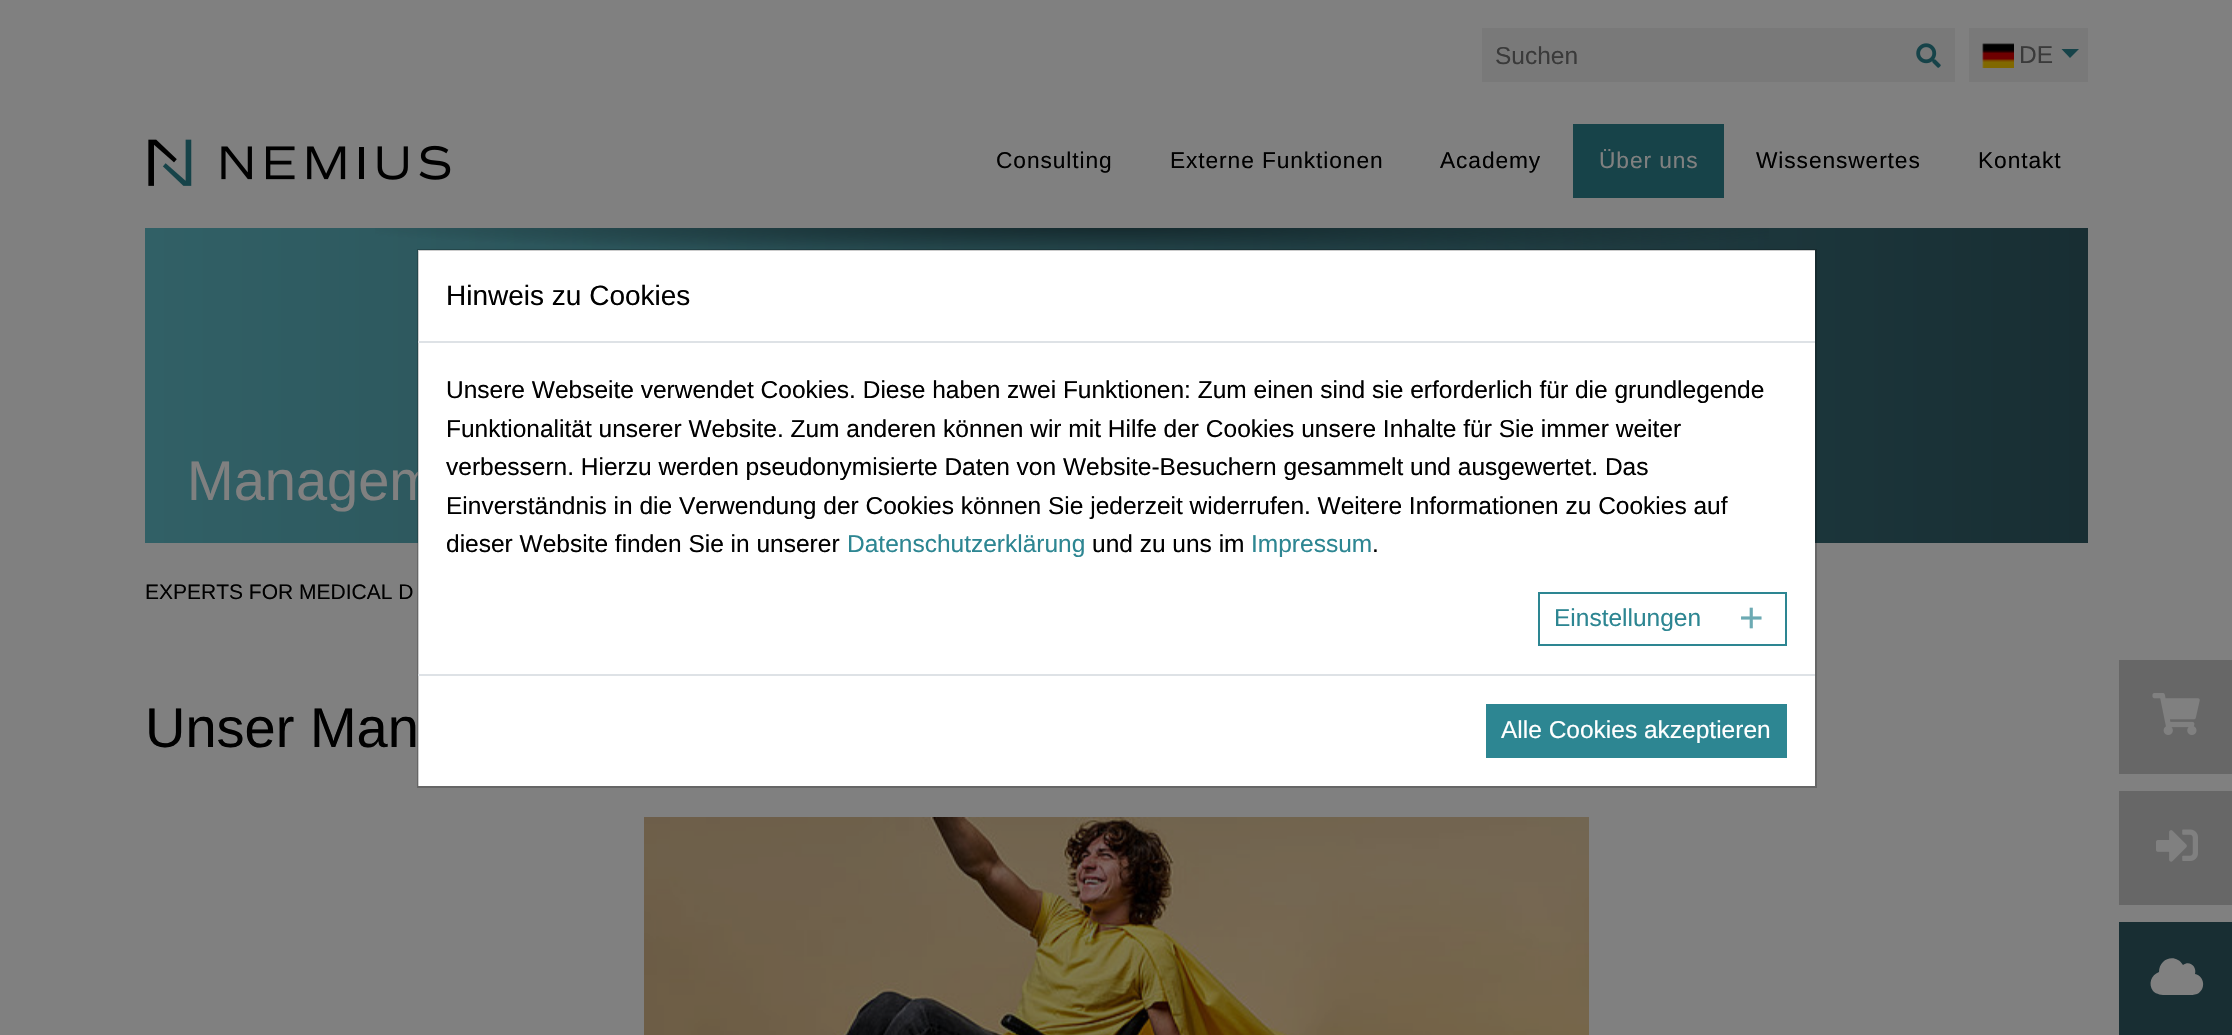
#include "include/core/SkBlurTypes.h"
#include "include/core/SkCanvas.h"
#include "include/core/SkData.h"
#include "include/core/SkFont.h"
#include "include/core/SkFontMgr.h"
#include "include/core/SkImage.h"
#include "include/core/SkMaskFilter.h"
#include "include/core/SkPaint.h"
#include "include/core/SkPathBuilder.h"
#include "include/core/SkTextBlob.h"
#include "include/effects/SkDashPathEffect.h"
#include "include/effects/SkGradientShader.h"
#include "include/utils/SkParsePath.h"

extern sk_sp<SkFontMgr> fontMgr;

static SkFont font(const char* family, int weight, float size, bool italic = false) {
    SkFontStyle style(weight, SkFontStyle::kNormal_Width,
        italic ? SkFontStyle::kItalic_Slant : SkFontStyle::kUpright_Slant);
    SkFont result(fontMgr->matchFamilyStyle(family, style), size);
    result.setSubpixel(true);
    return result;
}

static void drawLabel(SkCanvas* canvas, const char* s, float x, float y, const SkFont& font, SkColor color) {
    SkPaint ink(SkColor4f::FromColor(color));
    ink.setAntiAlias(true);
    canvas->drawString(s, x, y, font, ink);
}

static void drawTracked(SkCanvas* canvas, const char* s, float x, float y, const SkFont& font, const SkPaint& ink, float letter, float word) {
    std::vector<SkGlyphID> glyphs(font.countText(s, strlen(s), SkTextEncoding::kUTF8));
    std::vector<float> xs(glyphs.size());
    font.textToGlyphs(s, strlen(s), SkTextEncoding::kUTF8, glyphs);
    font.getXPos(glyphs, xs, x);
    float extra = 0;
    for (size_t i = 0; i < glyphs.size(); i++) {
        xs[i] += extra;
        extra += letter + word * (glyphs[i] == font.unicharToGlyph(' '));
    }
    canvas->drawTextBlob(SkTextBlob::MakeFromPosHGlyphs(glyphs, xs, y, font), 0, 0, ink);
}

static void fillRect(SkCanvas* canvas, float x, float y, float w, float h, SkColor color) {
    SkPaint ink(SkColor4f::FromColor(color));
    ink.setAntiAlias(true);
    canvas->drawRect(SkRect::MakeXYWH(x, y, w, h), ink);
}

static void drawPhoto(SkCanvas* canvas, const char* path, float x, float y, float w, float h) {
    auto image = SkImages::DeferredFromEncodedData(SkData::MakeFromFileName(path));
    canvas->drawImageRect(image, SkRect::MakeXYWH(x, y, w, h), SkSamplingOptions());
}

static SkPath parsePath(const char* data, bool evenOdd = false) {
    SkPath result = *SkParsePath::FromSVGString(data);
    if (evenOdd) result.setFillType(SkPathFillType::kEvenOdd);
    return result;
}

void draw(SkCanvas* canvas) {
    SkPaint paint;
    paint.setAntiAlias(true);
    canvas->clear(0xFF808080);
    drawPhoto(canvas, "assets/img1.png", 148, 139, 303, 47);
    fillRect(canvas, 1482, 28, 473, 54, 0xFF797979);
    SkFont font1 = font("Liberation Sans", 400, 24.5f);
    drawLabel(canvas, "Suchen", 1495, 64, font1, 0xFF3A3A3A);
    drawPhoto(canvas, "assets/img2.png", 1916, 43, 25, 25);
    fillRect(canvas, 1969, 28, 119, 54, 0xFF797979);
    drawPhoto(canvas, "assets/img3.png", 1982, 43, 32, 25);
    drawLabel(canvas, "DE", 2019, 63, font1, 0xFF3A3A3A);
    paint.setColor(0xFF174349);
    canvas->drawPath(parsePath("M2061.5 49H2079L2070 58Z"), paint);
    SkFont font2 = font("Liberation Sans", 400, 22.75f);
    paint.setColor(0xFF000000);
    drawTracked(canvas, "Consulting", 996, 168, font2, paint, 0.9f, 0);
    drawTracked(canvas, "Externe Funktionen", 1170, 168, font2, paint, 0.9f, 0);
    drawTracked(canvas, "Academy", 1440, 168, font2, paint, 0.9f, 0);
    fillRect(canvas, 1573, 124, 151, 74, 0xFF174349);
    paint.setColor(0xFF808080);
    drawTracked(canvas, "Über uns", 1599, 168, font2, paint, 0.9f, 0);
    paint.setColor(0xFF000000);
    drawTracked(canvas, "Wissenswertes", 1756, 168, font2, paint, 0.9f, 0);
    drawTracked(canvas, "Kontakt", 1978, 168, font2, paint, 0.9f, 0);
    {
        const SkColor colors[] = {0xFF316066, 0xFF182E33};
        const float stops[] = {0, 1};
        const SkPoint ends[] = {{145, 385}, {2088, 385}};
        paint.setShader(SkGradientShader::MakeLinear(ends, colors, stops, 2, SkTileMode::kClamp));
        paint.setAlpha(255);
    }
    canvas->drawRect(SkRect::MakeXYWH(145, 228, 1943, 315), paint);
    {
        const SkColor colors[] = {0xFF152A2E, 0x00152A2E};
        const float stops[] = {0, 1};
        SkMatrix m = SkMatrix::Translate(1117, 228).preScale(777, 26);
        paint.setShader(SkGradientShader::MakeRadial({0, 0}, 1, colors, stops, 2, SkTileMode::kClamp, 0, &m));
        paint.setAlpha(255);
    }
    canvas->drawRect(SkRect::MakeXYWH(375, 228, 1394, 22), paint);
    SkFont font3 = font("Liberation Sans", 400, 56);
    drawLabel(canvas, "Managem", 187, 500, font3, 0xFF808080);
    SkFont font4 = font("Liberation Sans", 400, 21);
    drawLabel(canvas, "EXPERTS FOR MEDICAL D", 145, 599, font4, 0xFF000000);
    drawLabel(canvas, "Unser Man", 145, 747, font3, 0xFF000000);
    drawPhoto(canvas, "assets/img4.png", 644, 817, 945, 218);
    fillRect(canvas, 418, 250, 1397, 536, 0xFFFFFFFF);
    paint.setStroke(true);
    paint.setStrokeWidth(2);
    paint.setShader(nullptr);
    paint.setColor(0x33000000);
    canvas->drawRect(SkRect::MakeXYWH(418, 250, 1398, 537), paint);
    fillRect(canvas, 418, 341, 1397, 2, 0xFFDEE2E6);
    SkFont font5 = font("Liberation Sans", 400, 28);
    drawLabel(canvas, "Hinweis zu Cookies", 446, 305, font5, 0xFF000000);
    drawLabel(canvas, "Unsere Webseite verwendet Cookies. Diese haben zwei Funktionen: Zum einen sind sie erforderlich für die grundlegende", 446, 398, font1, 0xFF000000);
    drawLabel(canvas, "Funktionalität unserer Website. Zum anderen können wir mit Hilfe der Cookies unsere Inhalte für Sie immer weiter", 446, 437, font1, 0xFF000000);
    drawLabel(canvas, "verbessern. Hierzu werden pseudonymisierte Daten von Website-Besuchern gesammelt und ausgewertet. Das", 446, 475, font1, 0xFF000000);
    drawLabel(canvas, "Einverständnis in die Verwendung der Cookies können Sie jederzeit widerrufen. Weitere Informationen zu Cookies auf", 446, 514, font1, 0xFF000000);
    drawLabel(canvas, "dieser Website finden Sie in unserer", 446, 552, font1, 0xFF000000);
    drawLabel(canvas, "Datenschutzerklärung", 847, 552, font1, 0xFF2D8692);
    drawLabel(canvas, "und zu uns im", 1092, 552, font1, 0xFF000000);
    drawLabel(canvas, "Impressum", 1251, 552, font1, 0xFF2D8692);
    drawLabel(canvas, ".", 1372, 552, font1, 0xFF000000);
    paint.setColor(0xFF2D8692);
    canvas->drawRect(SkRect::MakeXYWH(1539, 593, 247, 52), paint);
    drawLabel(canvas, "Einstellungen", 1554, 626, font1, 0xFF2D8692);
    SkFont font6 = font("Liberation Sans", 400, 42);
    drawLabel(canvas, "+", 1739, 632, font6, 0xFF6CAAB3);
    fillRect(canvas, 418, 674, 1397, 2, 0xFFDEE2E6);
    fillRect(canvas, 1486, 704, 301, 54, 0xFF2D8692);
    drawLabel(canvas, "Alle Cookies akzeptieren", 1501, 738, font1, 0xFFFFFFFF);
    fillRect(canvas, 2119, 660, 113, 114, 0xFF676767);
    drawPhoto(canvas, "assets/img5.png", 2152, 693, 48, 42);
    fillRect(canvas, 2119, 791, 113, 114, 0xFF676767);
    drawPhoto(canvas, "assets/img6.png", 2156, 829, 42, 33);
    fillRect(canvas, 2119, 922, 113, 113, 0xFF182E33);
    paint.setStroke(false);
    paint.setColor(0xFF808080);
    canvas->drawPath(parsePath("M2195 974C2205 976 2206 990 2197 994C2194 995 2191 995 2188 995H2173C2166 995 2158 996 2153 991C2148 984 2151 975 2159 972C2159 958 2176 953 2183 965C2190 960 2197 967 2195 974Z"), paint);
}
